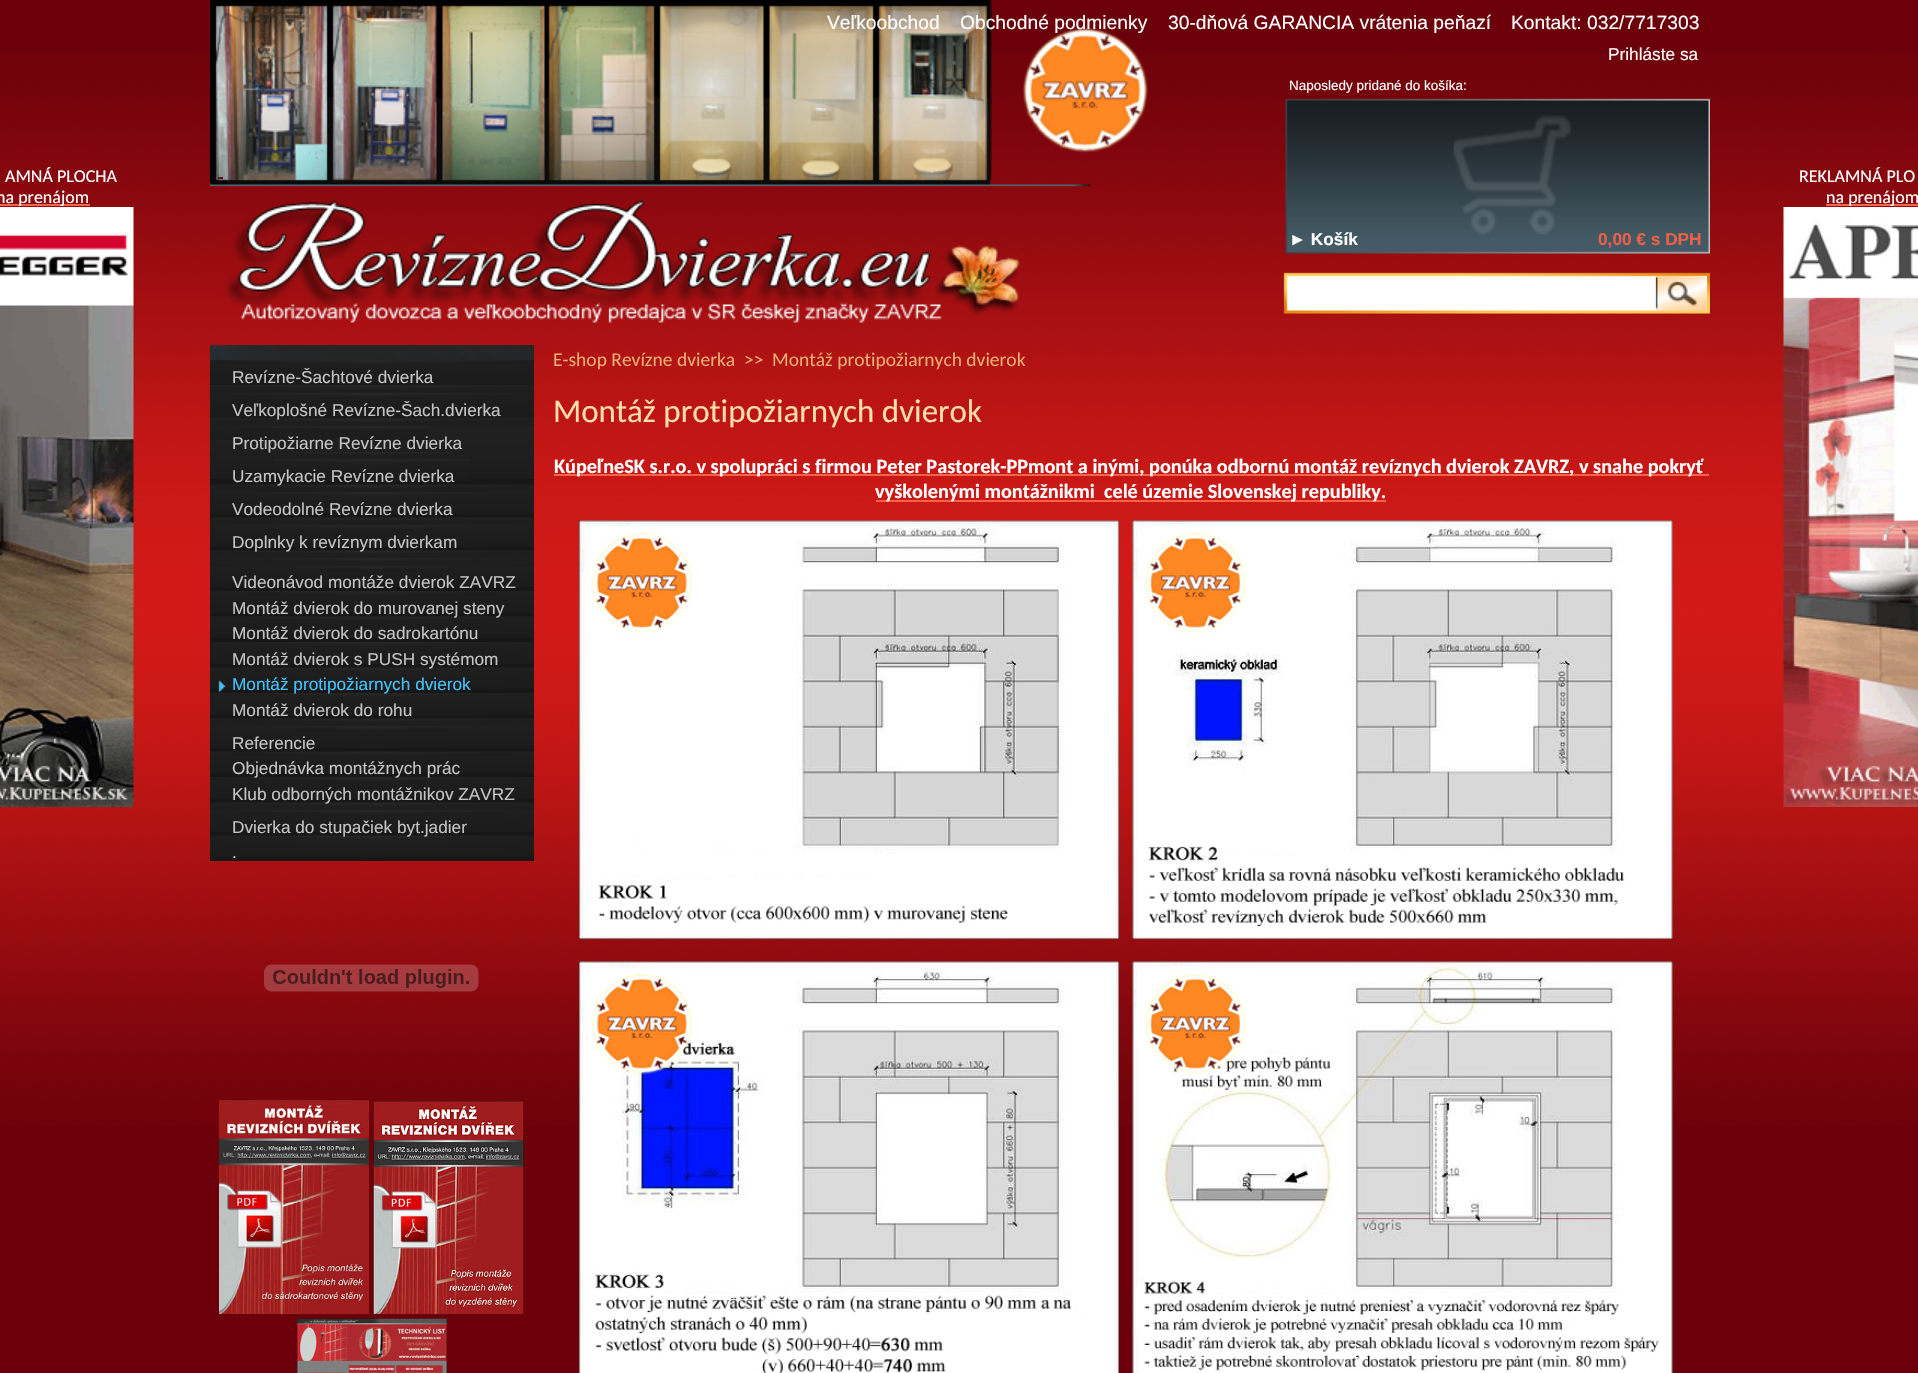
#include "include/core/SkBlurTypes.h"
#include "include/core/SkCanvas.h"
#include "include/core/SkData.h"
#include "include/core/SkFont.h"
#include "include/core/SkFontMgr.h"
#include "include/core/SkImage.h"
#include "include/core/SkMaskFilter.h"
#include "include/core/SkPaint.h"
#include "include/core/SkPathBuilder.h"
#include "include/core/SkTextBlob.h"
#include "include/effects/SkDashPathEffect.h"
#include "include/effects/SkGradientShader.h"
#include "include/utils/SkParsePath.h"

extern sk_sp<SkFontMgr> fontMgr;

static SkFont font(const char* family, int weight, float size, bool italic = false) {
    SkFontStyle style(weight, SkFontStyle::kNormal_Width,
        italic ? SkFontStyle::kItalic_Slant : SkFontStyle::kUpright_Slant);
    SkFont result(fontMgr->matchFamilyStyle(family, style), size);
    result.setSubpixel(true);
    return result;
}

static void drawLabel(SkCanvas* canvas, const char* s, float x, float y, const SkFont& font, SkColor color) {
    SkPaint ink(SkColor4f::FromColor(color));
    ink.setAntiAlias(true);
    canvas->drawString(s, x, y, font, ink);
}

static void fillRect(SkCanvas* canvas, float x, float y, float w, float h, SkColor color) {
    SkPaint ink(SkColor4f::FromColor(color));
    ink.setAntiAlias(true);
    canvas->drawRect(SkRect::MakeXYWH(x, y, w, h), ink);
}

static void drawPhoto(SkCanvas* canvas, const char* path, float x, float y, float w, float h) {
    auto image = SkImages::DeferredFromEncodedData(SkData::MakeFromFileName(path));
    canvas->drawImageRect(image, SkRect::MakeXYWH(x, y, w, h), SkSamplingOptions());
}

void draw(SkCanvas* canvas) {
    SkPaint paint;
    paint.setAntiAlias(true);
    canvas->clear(0xFF6B000A);
    drawPhoto(canvas, "assets/img1.png", 0, 51, 1918, 1075);
    drawPhoto(canvas, "assets/img2.png", 210, 0, 1500, 323);
    SkFont font1 = font("Liberation Sans", 400, 19.25f);
    drawLabel(canvas, "Veľkoobchod", 827, 29, font1, 0xFFFFFFFF);
    drawLabel(canvas, "Obchodné podmienky", 960, 29, font1, 0xFFFFFFFF);
    drawLabel(canvas, "30-dňová GARANCIA vrátenia peňazí", 1168, 29, font1, 0xFFFFFFFF);
    drawLabel(canvas, "Kontakt: 032/7717303", 1511, 29, font1, 0xFFFFFFFF);
    SkFont font2 = font("Liberation Sans", 400, 17.25f);
    drawLabel(canvas, "Prihláste sa", 1608, 60, font2, 0xFFFFFFFF);
    fillRect(canvas, 218, 177, 5, 2, 0xFF6B000A);
    SkFont font3 = font("Liberation Sans", 400, 13.5f);
    drawLabel(canvas, "Naposledy pridané do košíka:", 1289, 90, font3, 0xFFFFFFFF);
    SkFont font4 = font("Liberation Sans", 700, 17.25f);
    drawLabel(canvas, "► Košík", 1289, 245, font4, 0xFFFFFFFF);
    drawLabel(canvas, "0,00 € s DPH", 1598, 245, font4, 0xFFEF6149);
    drawPhoto(canvas, "assets/img3.png", 1656, 276, 51, 35);
    SkFont font5 = font("Carlito", 400, 18);
    drawLabel(canvas, "AMNÁ PLOCHA", 5, 182, font5, 0xFFFFFFFF);
    fillRect(canvas, 0, 204, 90, 2, 0xFFFF6347);
    drawLabel(canvas, "na prenájom", -4, 203, font5, 0xFFFFFFFF);
    drawPhoto(canvas, "assets/img4.png", 0, 207, 134, 600);
    drawLabel(canvas, "REKLAMNÁ PLO", 1799, 182, font5, 0xFFFFFFFF);
    fillRect(canvas, 1826, 204, 92, 2, 0xFFFF6347);
    drawLabel(canvas, "na prenájom", 1826, 203, font5, 0xFFFFFFFF);
    drawPhoto(canvas, "assets/img5.png", 1783, 207, 135, 600);
    SkFont font6 = font("Carlito", 400, 19.5f);
    drawLabel(canvas, "E-shop Revízne dvierka", 553, 366, font6, 0xFFE9AE6F);
    drawLabel(canvas, ">>", 744, 366, font6, 0xFFE9AE6F);
    drawLabel(canvas, "Montáž protipožiarnych dvierok", 772, 366, font6, 0xFFE9AE6F);
    SkFont font7 = font("Carlito", 400, 33);
    drawLabel(canvas, "Montáž protipožiarnych dvierok", 553, 422, font7, 0xFFFFDEAD);
    fillRect(canvas, 554, 474, 1155, 2, 0xFFFF6347);
    SkFont font8 = font("Carlito", 700, 20.25f);
    drawLabel(canvas, "KúpeľneSK s.r.o. v spolupráci s firmou Peter Pastorek-PPmont a inými, ponúka odbornú montáž revíznych dvierok ZAVRZ, v snahe pokryť", 554, 473, font8, 0xFFFFFFFF);
    fillRect(canvas, 876, 500, 510, 2, 0xFFFF6347);
    drawLabel(canvas, "vyškolenými montážnikmi  celé územie Slovenskej republiky.", 875, 498, font8, 0xFFFFFFFF);
    drawPhoto(canvas, "assets/img6.png", 579, 520, 540, 419);
    drawPhoto(canvas, "assets/img7.png", 1132, 520, 541, 419);
    drawPhoto(canvas, "assets/img8.png", 579, 961, 540, 412);
    drawPhoto(canvas, "assets/img9.png", 1132, 961, 541, 412);
    fillRect(canvas, 210, 479, 324, 382, 0xFF171717);
    drawPhoto(canvas, "assets/img10.png", 210, 345, 324, 134);
    drawPhoto(canvas, "assets/img11.png", 210, 360, 324, 26);
    drawLabel(canvas, "Revízne-Šachtové dvierka", 232, 383, font2, 0xFFC3C3C3);
    drawPhoto(canvas, "assets/img12.png", 210, 385, 324, 8);
    drawPhoto(canvas, "assets/img13.png", 210, 393, 324, 26);
    drawPhoto(canvas, "assets/img14.png", 210, 418, 324, 8);
    drawLabel(canvas, "Veľkoplošné Revízne-Šach.dvierka", 232, 416, font2, 0xFFC3C3C3);
    drawPhoto(canvas, "assets/img15.png", 210, 426, 217, 14);
    drawPhoto(canvas, "assets/img16.png", 292, 452, 160, 2);
    drawLabel(canvas, "Protipožiarne Revízne dvierka", 232, 449, font2, 0xFFC3C3C3);
    drawPhoto(canvas, "assets/img17.png", 274, 459, 196, 22);
    drawPhoto(canvas, "assets/img18.png", 210, 484, 324, 8);
    drawLabel(canvas, "Uzamykacie Revízne dvierka", 232, 482, font2, 0xFFC3C3C3);
    drawPhoto(canvas, "assets/img19.png", 210, 492, 324, 22);
    drawLabel(canvas, "Vodeodolné Revízne dvierka", 232, 515, font2, 0xFFC3C3C3);
    drawPhoto(canvas, "assets/img18.png", 210, 517, 324, 8);
    drawPhoto(canvas, "assets/img19.png", 210, 525, 324, 22);
    drawPhoto(canvas, "assets/img18.png", 210, 550, 324, 8);
    drawLabel(canvas, "Doplnky k revíznym dvierkam", 232, 548, font2, 0xFFC3C3C3);
    drawPhoto(canvas, "assets/img20.png", 210, 558, 324, 7);
    drawPhoto(canvas, "assets/img21.png", 210, 565, 324, 22);
    drawLabel(canvas, "Videonávod montáže dvierok ZAVRZ", 232, 588, font2, 0xFFC3C3C3);
    drawPhoto(canvas, "assets/img19.png", 210, 591, 324, 22);
    drawPhoto(canvas, "assets/img21.png", 210, 616, 324, 22);
    drawLabel(canvas, "Montáž dvierok do murovanej steny", 232, 614, font2, 0xFFC3C3C3);
    drawLabel(canvas, "Montáž dvierok do sadrokartónu", 232, 639, font2, 0xFFC3C3C3);
    drawPhoto(canvas, "assets/img19.png", 210, 642, 324, 22);
    drawPhoto(canvas, "assets/img21.png", 210, 667, 324, 22);
    drawLabel(canvas, "Montáž dvierok s PUSH systémom", 232, 665, font2, 0xFFC3C3C3);
    drawPhoto(canvas, "assets/img22.png", 218, 680, 8, 12);
    drawPhoto(canvas, "assets/img19.png", 210, 693, 324, 22);
    drawLabel(canvas, "Montáž protipožiarnych dvierok", 232, 690, font2, 0xFF41C4FF);
    drawLabel(canvas, "Montáž dvierok do rohu", 232, 716, font2, 0xFFC3C3C3);
    drawPhoto(canvas, "assets/img18.png", 210, 718, 324, 8);
    drawPhoto(canvas, "assets/img19.png", 210, 726, 324, 22);
    drawLabel(canvas, "Referencie", 232, 749, font2, 0xFFC3C3C3);
    drawPhoto(canvas, "assets/img21.png", 210, 751, 324, 22);
    drawPhoto(canvas, "assets/img19.png", 210, 777, 324, 22);
    drawLabel(canvas, "Objednávka montážnych prác", 232, 774, font2, 0xFFC3C3C3);
    drawPhoto(canvas, "assets/img18.png", 210, 802, 324, 8);
    drawLabel(canvas, "Klub odborných montážnikov ZAVRZ", 232, 800, font2, 0xFFC3C3C3);
    drawPhoto(canvas, "assets/img19.png", 210, 810, 324, 22);
    drawPhoto(canvas, "assets/img21.png", 210, 835, 324, 22);
    drawLabel(canvas, "Dvierka do stupačiek byt.jadier", 232, 833, font2, 0xFFC3C3C3);
    drawLabel(canvas, ".", 232, 858, font2, 0xFFC3C3C3);
    drawPhoto(canvas, "assets/img23.png", 264, 964, 215, 28);
    drawPhoto(canvas, "assets/img24.png", 219, 1099, 150, 215);
    drawPhoto(canvas, "assets/img25.png", 373, 1101, 151, 213);
    drawPhoto(canvas, "assets/img26.png", 297, 1318, 150, 55);
}
